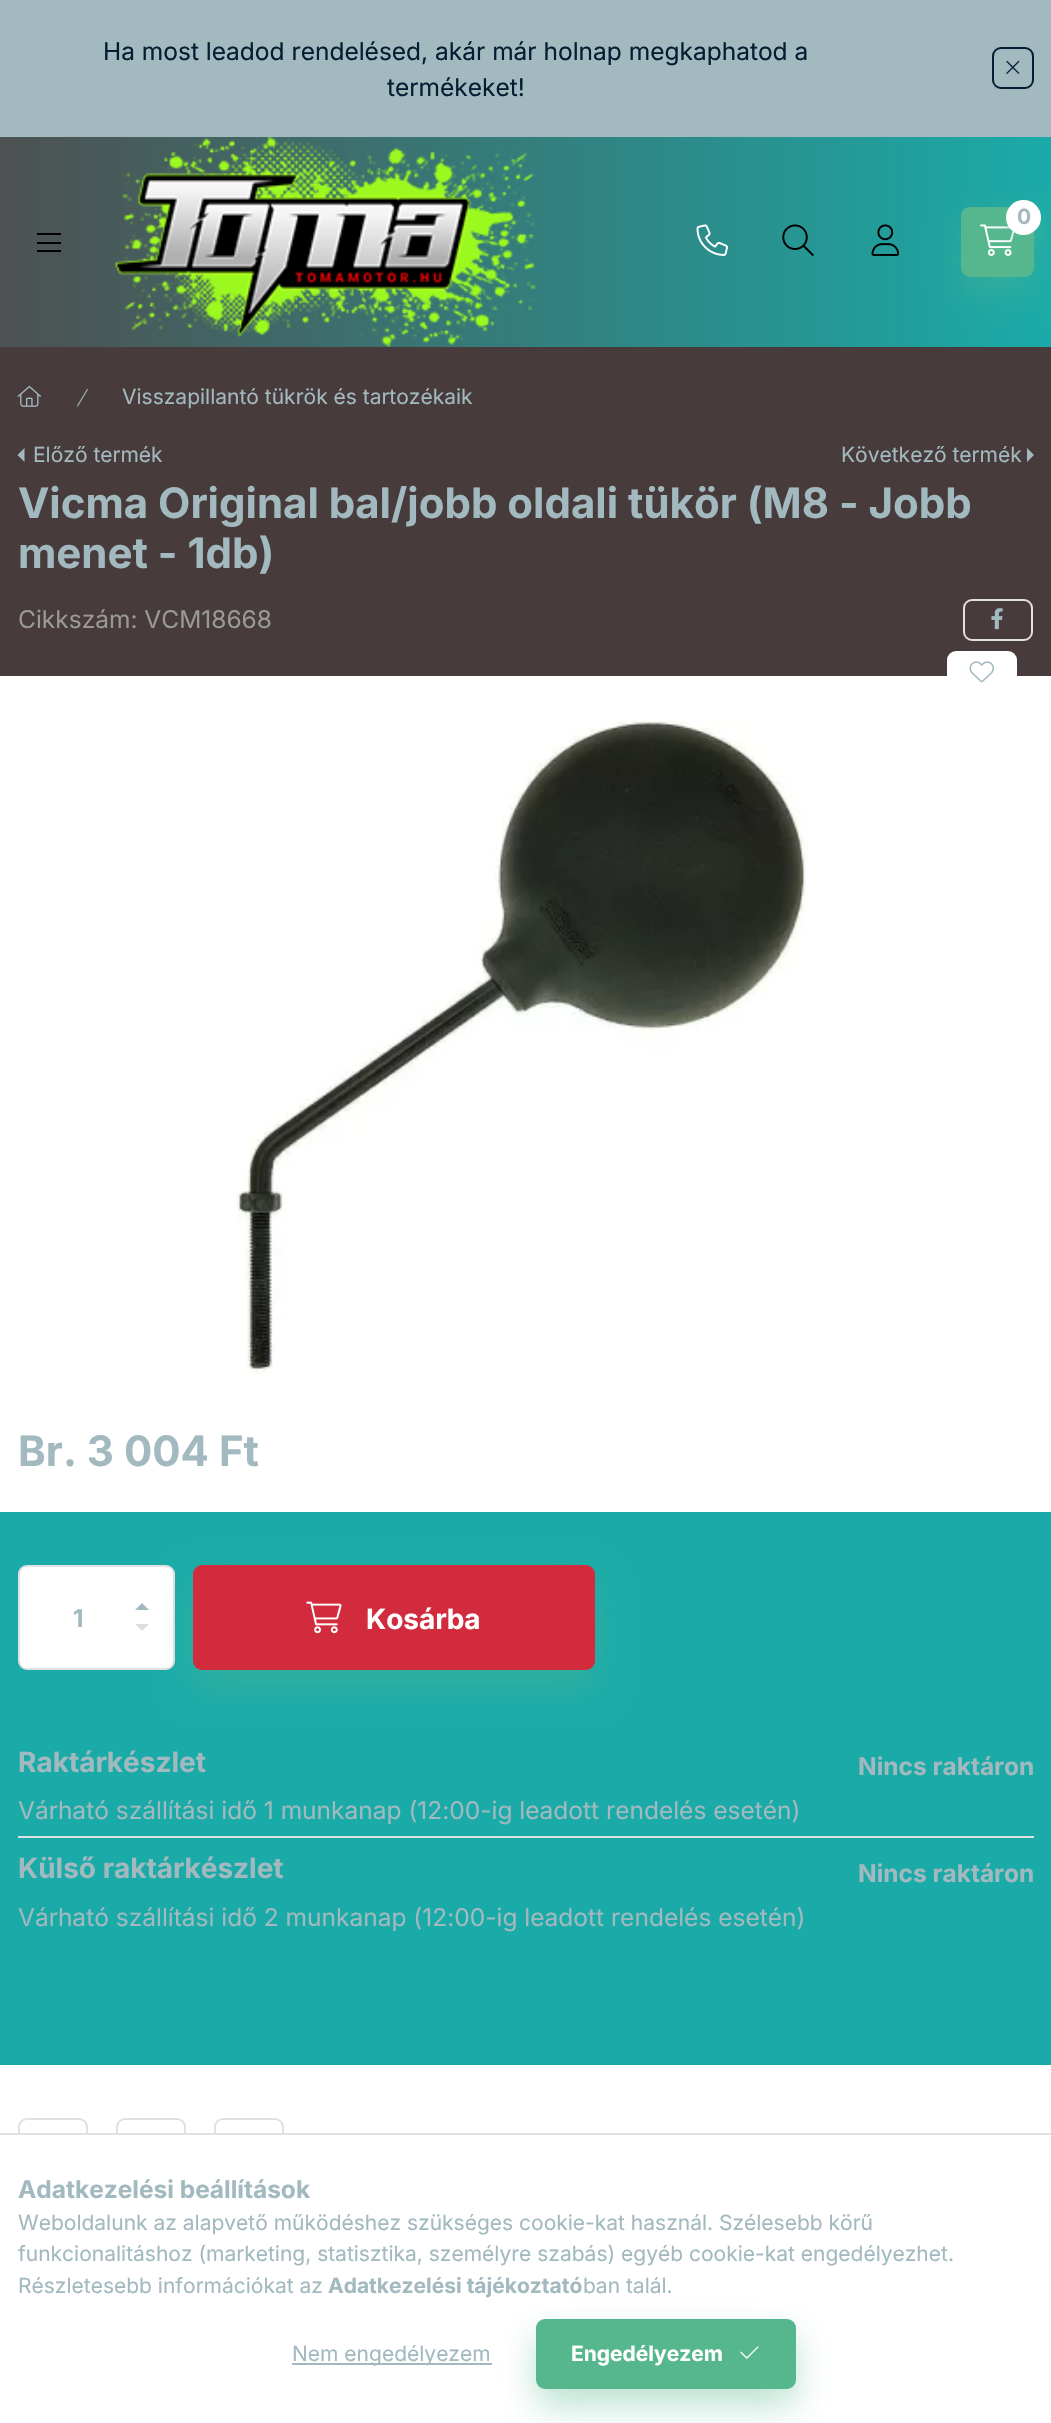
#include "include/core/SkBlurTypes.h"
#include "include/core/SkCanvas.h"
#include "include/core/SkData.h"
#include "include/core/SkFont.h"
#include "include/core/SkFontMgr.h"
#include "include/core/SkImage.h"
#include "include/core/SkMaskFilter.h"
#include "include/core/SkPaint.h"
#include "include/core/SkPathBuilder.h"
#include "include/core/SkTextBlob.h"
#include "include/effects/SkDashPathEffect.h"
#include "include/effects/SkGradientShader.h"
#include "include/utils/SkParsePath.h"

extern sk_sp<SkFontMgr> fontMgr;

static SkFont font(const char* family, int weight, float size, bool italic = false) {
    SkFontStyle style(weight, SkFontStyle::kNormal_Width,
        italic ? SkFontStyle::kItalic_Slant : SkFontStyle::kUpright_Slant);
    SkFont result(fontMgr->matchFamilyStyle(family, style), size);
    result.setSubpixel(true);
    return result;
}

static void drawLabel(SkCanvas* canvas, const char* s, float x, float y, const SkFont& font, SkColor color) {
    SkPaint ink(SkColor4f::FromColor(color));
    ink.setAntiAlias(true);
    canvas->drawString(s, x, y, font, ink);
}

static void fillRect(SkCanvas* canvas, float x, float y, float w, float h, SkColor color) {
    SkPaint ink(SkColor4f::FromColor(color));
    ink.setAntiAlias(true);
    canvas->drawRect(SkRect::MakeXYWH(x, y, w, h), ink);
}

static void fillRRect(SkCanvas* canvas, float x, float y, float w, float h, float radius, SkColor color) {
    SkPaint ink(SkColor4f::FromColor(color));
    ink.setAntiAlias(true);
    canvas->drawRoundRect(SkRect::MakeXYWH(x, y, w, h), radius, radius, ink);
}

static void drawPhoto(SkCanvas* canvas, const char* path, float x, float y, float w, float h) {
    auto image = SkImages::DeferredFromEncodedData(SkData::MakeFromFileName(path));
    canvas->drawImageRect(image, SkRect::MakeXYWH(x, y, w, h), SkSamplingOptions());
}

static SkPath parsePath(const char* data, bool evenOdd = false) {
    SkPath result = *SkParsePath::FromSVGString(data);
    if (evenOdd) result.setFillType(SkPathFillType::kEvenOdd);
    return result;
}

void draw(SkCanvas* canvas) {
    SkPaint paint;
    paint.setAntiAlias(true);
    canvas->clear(0xFF473B3B);
    fillRect(canvas, 0, 0, 1051, 137, 0xFFA2B9BF);
    SkFont font1 = font("Inter", 400, 24.5f);
    drawLabel(canvas, "Ha most leadod rendelésed, akár már holnap megkaphatod a", 103, 60, font1, 0xFF051D33);
    drawLabel(canvas, "termékeket!", 387, 96, font1, 0xFF051D33);
    paint.setStroke(true);
    paint.setStrokeWidth(2);
    paint.setColor(0xFF051D33);
    canvas->drawRoundRect(SkRect::MakeXYWH(993, 48, 40, 40), 8, 8, paint);
    drawPhoto(canvas, "assets/img1.png", 1006, 60, 14, 14);
    paint.setStroke(false);
    {
        const SkColor colors[] = {0xFF4D5151, 0xFF1AABA8};
        const float stops[] = {0, 1};
        const SkPoint ends[] = {{0, 1212}, {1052, 1212}};
        paint.setShader(SkGradientShader::MakeLinear(ends, colors, stops, 2, SkTileMode::kClamp));
        paint.setAlpha(255);
    }
    canvas->drawRect(SkRect::MakeXYWH(0, 137, 1051, 210), paint);
    fillRect(canvas, 37, 233, 24, 2, 0xFF000000);
    fillRect(canvas, 37, 242, 24, 2, 0xFF000000);
    fillRect(canvas, 37, 250, 24, 2, 0xFF000000);
    drawPhoto(canvas, "assets/img2.png", 115, 137, 421, 210);
    drawPhoto(canvas, "assets/img3.png", 696, 224, 32, 32);
    paint.setShader(nullptr);
    paint.setColor(0x6656B78F);
    paint.setMaskFilter(SkMaskFilter::MakeBlur(kNormal_SkBlurStyle, 17.5f));
    canvas->drawRoundRect(SkRect::MakeXYWH(961, 224, 73, 70), 9, 9, paint);
    paint.setMaskFilter(nullptr);
    fillRRect(canvas, 961, 207, 73, 70, 9, 0xFF56B78F);
    drawPhoto(canvas, "assets/img4.png", 980, 224, 35, 32);
    paint.setMaskFilter(SkMaskFilter::MakeBlur(kNormal_SkBlurStyle, 9));
    canvas->drawRoundRect(SkRect::MakeXYWH(1006, 208, 35, 35), 17.5f, 17.5f, paint);
    paint.setMaskFilter(nullptr);
    paint.setColor(0xFFFFFFFF);
    canvas->drawCircle(1023.5f, 217.5f, 17.5f, paint);
    SkFont font2 = font("Inter", 700, 21);
    drawLabel(canvas, "0", 1017, 224, font2, 0xFFA2B9BF);
    drawPhoto(canvas, "assets/img5.png", 782, 224, 32, 32);
    drawPhoto(canvas, "assets/img6.png", 871, 224, 29, 32);
    drawPhoto(canvas, "assets/img7.png", 17, 385, 25, 22);
    drawPhoto(canvas, "assets/img8.png", 77, 389, 11, 18);
    SkFont font3 = font("Inter", 400, 21);
    drawLabel(canvas, "Visszapillantó tükrök és tartozékaik", 122, 404, font3, 0xFFA2B9BF);
    paint.setColor(0xFFA2B9BF);
    canvas->drawPath(parsePath("M24.5 462V448L17.5 455Z"), paint);
    drawLabel(canvas, "Előző termék", 33, 462, font3, 0xFFA2B9BF);
    drawLabel(canvas, "Következő termék", 841, 462, font3, 0xFFA2B9BF);
    canvas->drawPath(parsePath("M1027 462V448L1034 455Z"), paint);
    SkFont font4 = font("Inter", 700, 42);
    drawLabel(canvas, "Vicma Original bal/jobb oldali tükör (M8 - Jobb", 18, 518, font4, 0xFFA2B9BF);
    drawLabel(canvas, "menet - 1db)", 18, 568, font4, 0xFFA2B9BF);
    drawLabel(canvas, "Cikkszám: VCM18668", 18, 628, font1, 0xFF999999);
    paint.setStroke(true);
    paint.setColor(0xFFE1E1E1);
    canvas->drawRoundRect(SkRect::MakeXYWH(964, 600, 68, 40), 8, 8, paint);
    drawPhoto(canvas, "assets/img9.png", 991, 608, 12, 22);
    fillRect(canvas, 0, 676, 1051, 1457, 0xFFFFFFFF);
    fillRRect(canvas, 947, 651, 70, 42, 9, 0xFFFFFFFF);
    drawPhoto(canvas, "assets/img10.png", 969, 661, 25, 22);
    drawPhoto(canvas, "assets/img11.png", 236, 720, 572, 655);
    drawLabel(canvas, "Br. 3 004 Ft", 18, 1466, font4, 0xFFA2B9BF);
    fillRect(canvas, 0, 1512, 1051, 553, 0xFF1AABA8);
    paint.setStroke(false);
    paint.setColor(0xFFFFFFFF);
    canvas->drawRoundRect(SkRect::MakeXYWH(19, 1566, 155, 103), 8, 8, paint);
    paint.setStroke(true);
    paint.setColor(0xFFE1E1E1);
    canvas->drawRoundRect(SkRect::MakeXYWH(19, 1566, 155, 103), 8, 8, paint);
    SkFont font5 = font("Inter", 700, 24.5f);
    drawLabel(canvas, "1", 73, 1627, font5, 0xFFA2B9BF);
    paint.setStroke(false);
    paint.setColor(0xFFA2B9BF);
    canvas->drawPath(parsePath("M149 1610H135L142 1603Z"), paint);
    paint.setColor(0xFFDDDDDD);
    canvas->drawPath(parsePath("M135 1624H149L142 1631Z"), paint);
    paint.setColor(0x6656B78F);
    paint.setMaskFilter(SkMaskFilter::MakeBlur(kNormal_SkBlurStyle, 17.5f));
    canvas->drawRoundRect(SkRect::MakeXYWH(193, 1582, 402, 105), 9, 9, paint);
    paint.setMaskFilter(nullptr);
    fillRRect(canvas, 193, 1565, 402, 105, 9, 0xFFD22B3D);
    drawPhoto(canvas, "assets/img12.png", 306, 1601, 36, 33);
    SkFont font6 = font("Inter", 700, 28);
    drawLabel(canvas, "Kosárba", 366, 1629, font6, 0xFFFFFFFF);
    fillRect(canvas, 18, 1836, 1016, 2, 0xFFE1E1E1);
    drawLabel(canvas, "Raktárkészlet", 18, 1772, font6, 0xFFA2B9BF);
    drawLabel(canvas, "Nincs raktáron", 858, 1775, font5, 0xFFA2B9BF);
    drawLabel(canvas, "Várható szállítási idő 1 munkanap (12:00-ig leadott rendelés esetén)", 18, 1819, font1, 0xFFA2B9BF);
    drawLabel(canvas, "Külső raktárkészlet", 18, 1878, font6, 0xFFA2B9BF);
    drawLabel(canvas, "Nincs raktáron", 858, 1882, font5, 0xFFA2B9BF);
    drawLabel(canvas, "Várható szállítási idő 2 munkanap (12:00-ig leadott rendelés esetén)", 18, 1926, font1, 0xFFA2B9BF);
    paint.setStroke(true);
    paint.setColor(0xFFE1E1E1);
    canvas->drawRoundRect(SkRect::MakeXYWH(19, 2119, 68, 68), 8, 8, paint);
    canvas->drawRoundRect(SkRect::MakeXYWH(117, 2119, 68, 68), 8, 8, paint);
    canvas->drawRoundRect(SkRect::MakeXYWH(215, 2119, 68, 68), 8, 8, paint);
    fillRect(canvas, 0, 2135, 1051, 288, 0xFFFFFFFF);
    fillRect(canvas, 0, 2133, 1051, 2, 0xFFE1E1E1);
    drawLabel(canvas, "Adatkezelési beállítások", 18, 2198, font5, 0xFFA2B9BF);
    drawLabel(canvas, "Weboldalunk az alapvető működéshez szükséges cookie-kat használ. Szélesebb körű", 18, 2230, font3, 0xFFA2B9BF);
    drawLabel(canvas, "funkcionalitáshoz (marketing, statisztika, személyre szabás) egyéb cookie-kat engedélyezhet.", 18, 2261, font3, 0xFFA2B9BF);
    drawLabel(canvas, "Részletesebb információkat az", 18, 2293, font3, 0xFFA2B9BF);
    drawLabel(canvas, "Adatkezelési tájékoztató", 328, 2293, font2, 0xFFA2B9BF);
    drawLabel(canvas, "ban talál.", 583, 2293, font3, 0xFFA2B9BF);
    fillRect(canvas, 292, 2363, 200, 2, 0xFFA2B9BF);
    drawLabel(canvas, "Nem engedélyezem", 292, 2361, font3, 0xFFA2B9BF);
    paint.setStroke(false);
    paint.setColor(0x6656B78F);
    paint.setMaskFilter(SkMaskFilter::MakeBlur(kNormal_SkBlurStyle, 17.5f));
    canvas->drawRoundRect(SkRect::MakeXYWH(536, 2336, 260, 70), 9, 9, paint);
    paint.setMaskFilter(nullptr);
    paint.setColor(0xFF56B78F);
    canvas->drawRoundRect(SkRect::MakeXYWH(537, 2320, 258, 68), 8, 8, paint);
    paint.setStroke(true);
    canvas->drawRoundRect(SkRect::MakeXYWH(537, 2320, 258, 68), 8, 8, paint);
    drawLabel(canvas, "Engedélyezem", 571, 2361, font2, 0xFFFFFFFF);
    drawPhoto(canvas, "assets/img13.png", 740, 2346, 19, 13);
}
